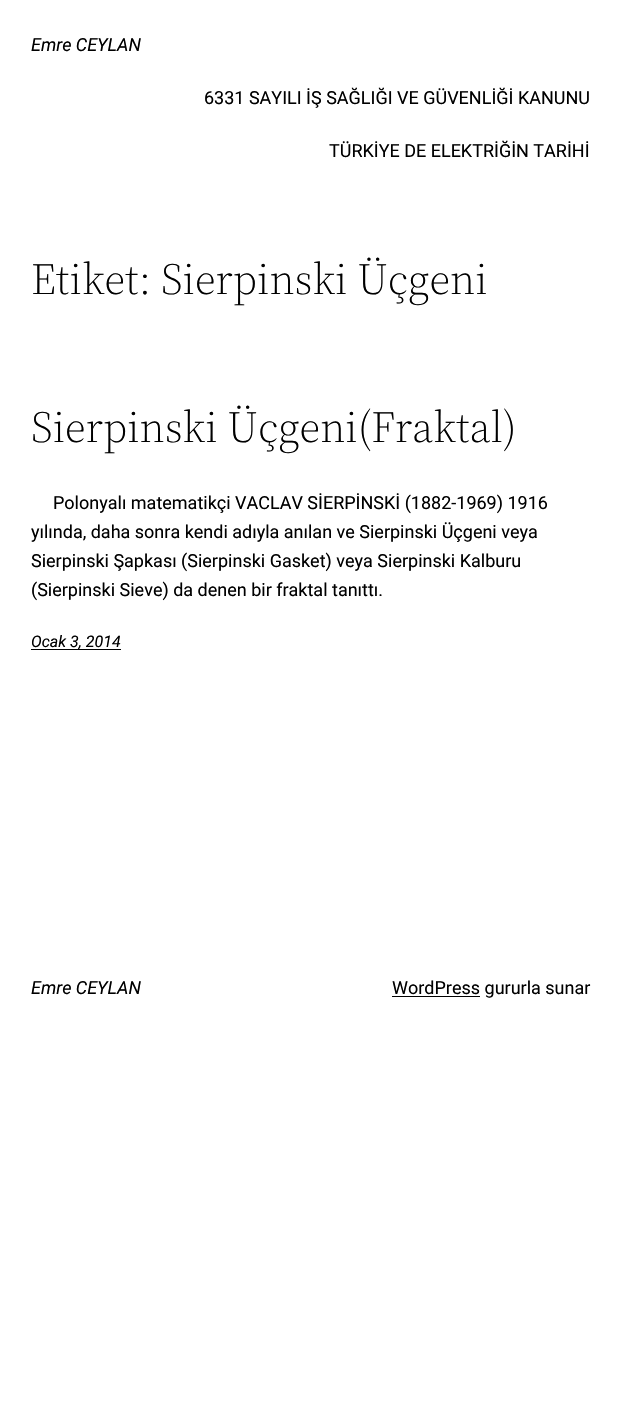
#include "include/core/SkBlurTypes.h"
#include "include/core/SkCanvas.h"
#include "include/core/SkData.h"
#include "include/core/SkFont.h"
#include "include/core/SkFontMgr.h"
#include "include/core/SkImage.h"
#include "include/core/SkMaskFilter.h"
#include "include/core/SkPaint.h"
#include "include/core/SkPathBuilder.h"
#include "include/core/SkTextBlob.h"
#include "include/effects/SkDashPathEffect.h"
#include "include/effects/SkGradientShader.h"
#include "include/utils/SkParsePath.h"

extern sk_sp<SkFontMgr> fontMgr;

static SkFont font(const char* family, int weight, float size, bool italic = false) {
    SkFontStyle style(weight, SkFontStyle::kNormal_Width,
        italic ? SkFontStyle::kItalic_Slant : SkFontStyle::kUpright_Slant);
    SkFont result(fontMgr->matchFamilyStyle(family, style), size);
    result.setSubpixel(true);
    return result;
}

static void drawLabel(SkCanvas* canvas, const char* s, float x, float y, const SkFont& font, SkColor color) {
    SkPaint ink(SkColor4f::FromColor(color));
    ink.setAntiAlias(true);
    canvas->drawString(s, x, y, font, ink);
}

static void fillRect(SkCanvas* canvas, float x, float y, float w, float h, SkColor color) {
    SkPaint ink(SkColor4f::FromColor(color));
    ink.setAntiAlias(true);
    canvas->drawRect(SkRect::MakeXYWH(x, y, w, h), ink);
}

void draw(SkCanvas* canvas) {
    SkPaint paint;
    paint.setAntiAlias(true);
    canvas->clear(0xFFFFFFFF);
    SkFont font1 = font("Roboto", 400, 18, true);
    drawLabel(canvas, "Emre CEYLAN", 31, 51, font1, 0xFF000000);
    SkFont font2 = font("Roboto", 400, 18);
    drawLabel(canvas, "6331 SAYILI İŞ SAĞLIĞI VE GÜVENLİĞİ KANUNU", 204, 104, font2, 0xFF000000);
    drawLabel(canvas, "TÜRKİYE DE ELEKTRİĞİN TARİHİ", 329, 157, font2, 0xFF000000);
    SkFont font3 = font("Source Serif 4", 300, 44);
    drawLabel(canvas, "Etiket: Sierpinski Üçgeni", 31, 294, font3, 0xFF000000);
    drawLabel(canvas, "Sierpinski Üçgeni(Fraktal)", 31, 442, font3, 0xFF000000);
    drawLabel(canvas, "Polonyalı matematikçi VACLAV SİERPİNSKİ (1882-1969) 1916", 53, 509, font2, 0xFF000000);
    drawLabel(canvas, "yılında, daha sonra kendi adıyla anılan ve Sierpinski Üçgeni veya", 31, 538, font2, 0xFF000000);
    drawLabel(canvas, "Sierpinski Şapkası (Sierpinski Gasket) veya Sierpinski Kalburu", 31, 567, font2, 0xFF000000);
    drawLabel(canvas, "(Sierpinski Sieve) da denen bir fraktal tanıttı.", 31, 596, font2, 0xFF000000);
    fillRect(canvas, 31, 649, 90, 1, 0xFF000000);
    SkFont font4 = font("Roboto", 400, 16, true);
    drawLabel(canvas, "Ocak 3, 2014", 31, 647, font4, 0xFF000000);
    drawLabel(canvas, "Emre CEYLAN", 31, 994, font1, 0xFF000000);
    fillRect(canvas, 392, 996, 88, 1, 0xFF000000);
    drawLabel(canvas, "WordPress gururla sunar", 392, 994, font2, 0xFF000000);
}
